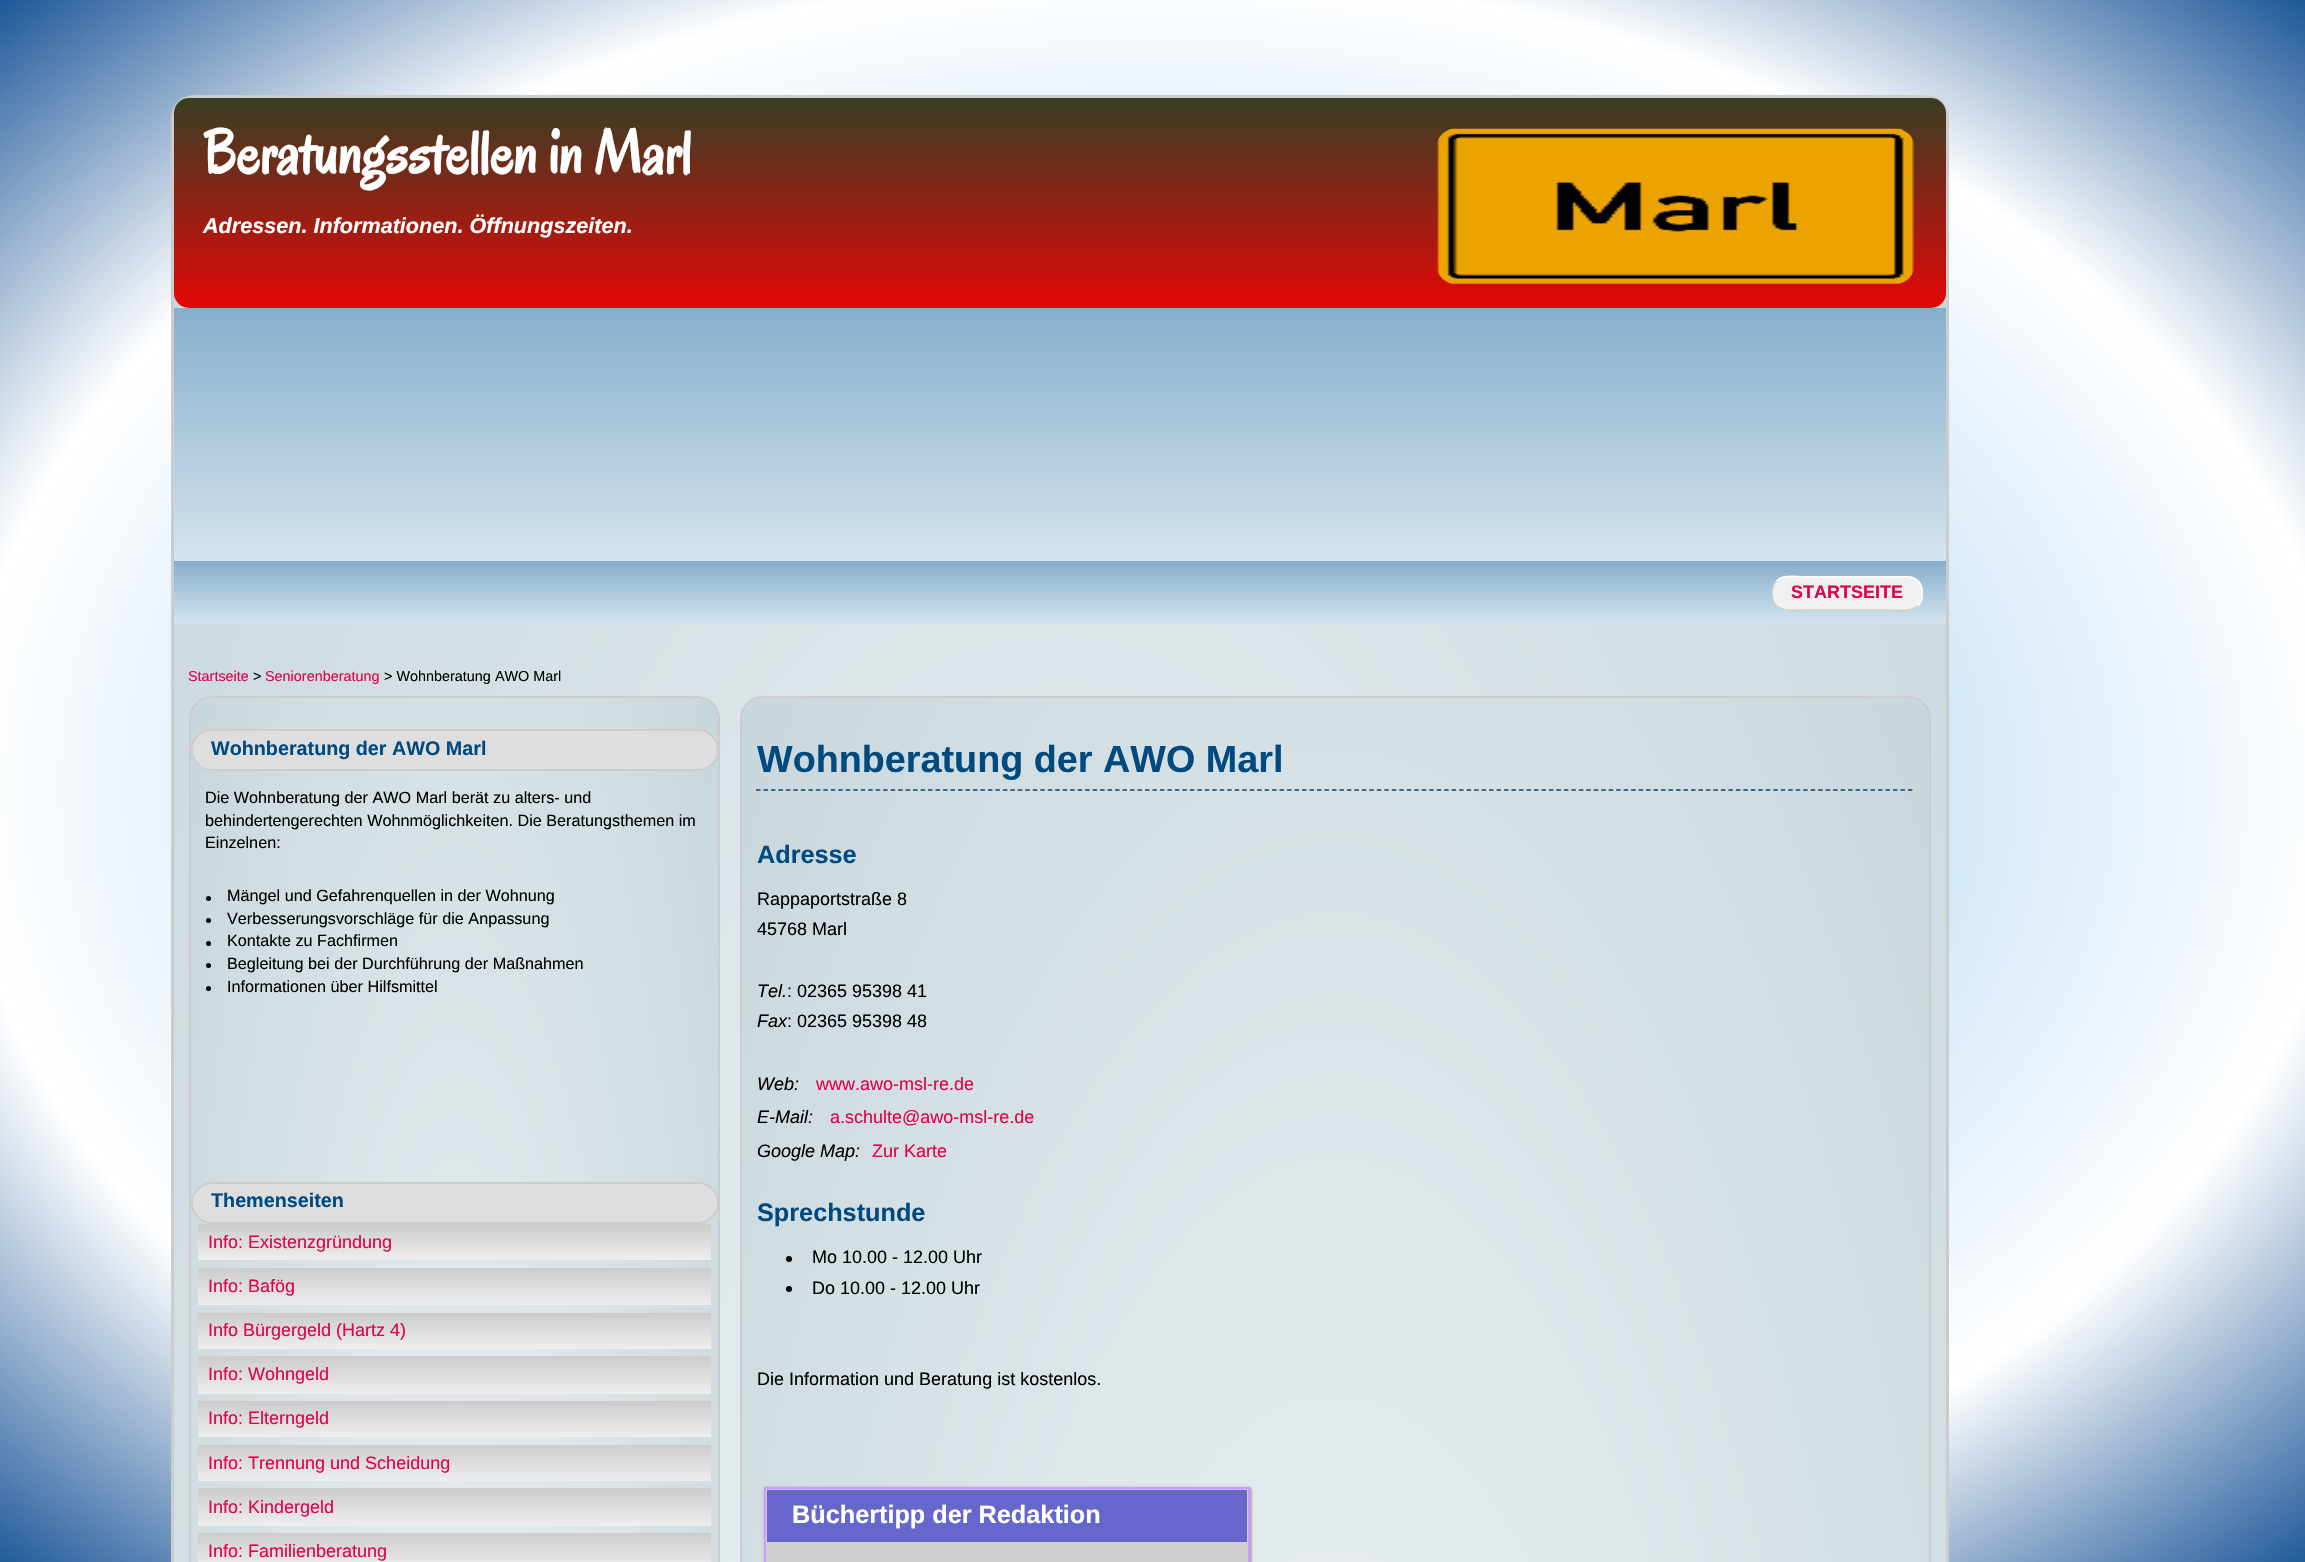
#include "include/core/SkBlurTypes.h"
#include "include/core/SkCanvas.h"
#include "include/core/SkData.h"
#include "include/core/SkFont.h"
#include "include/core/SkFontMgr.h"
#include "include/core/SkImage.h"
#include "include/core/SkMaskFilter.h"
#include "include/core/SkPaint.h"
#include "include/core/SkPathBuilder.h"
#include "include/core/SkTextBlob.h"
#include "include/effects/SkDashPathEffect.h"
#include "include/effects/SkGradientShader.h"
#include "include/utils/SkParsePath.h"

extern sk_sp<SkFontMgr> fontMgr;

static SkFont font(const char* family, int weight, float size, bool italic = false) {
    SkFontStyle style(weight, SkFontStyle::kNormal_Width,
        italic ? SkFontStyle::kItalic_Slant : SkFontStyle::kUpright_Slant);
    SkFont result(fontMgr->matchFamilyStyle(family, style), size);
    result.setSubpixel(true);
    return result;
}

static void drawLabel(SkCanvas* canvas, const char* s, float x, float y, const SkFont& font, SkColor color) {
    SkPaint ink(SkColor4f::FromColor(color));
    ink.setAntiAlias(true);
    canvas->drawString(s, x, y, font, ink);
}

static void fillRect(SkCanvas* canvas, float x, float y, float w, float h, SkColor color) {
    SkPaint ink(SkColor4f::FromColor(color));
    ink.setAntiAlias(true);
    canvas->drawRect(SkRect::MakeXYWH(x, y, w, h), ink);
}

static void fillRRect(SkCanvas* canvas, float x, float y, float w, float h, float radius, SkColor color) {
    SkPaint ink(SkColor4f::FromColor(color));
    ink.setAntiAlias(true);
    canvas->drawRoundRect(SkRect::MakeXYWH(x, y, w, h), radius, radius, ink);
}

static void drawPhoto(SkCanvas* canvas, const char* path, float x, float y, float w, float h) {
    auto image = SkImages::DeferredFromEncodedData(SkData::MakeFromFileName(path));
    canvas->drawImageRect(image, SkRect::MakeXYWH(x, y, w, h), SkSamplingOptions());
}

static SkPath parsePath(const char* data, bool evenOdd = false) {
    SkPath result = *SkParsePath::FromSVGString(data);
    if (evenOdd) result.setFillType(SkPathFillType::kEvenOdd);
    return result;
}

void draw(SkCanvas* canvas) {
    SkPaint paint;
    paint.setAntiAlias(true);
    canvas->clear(0xFFFFFFFF);
    {
        const SkColor colors[] = {0xFF7DB9E8, 0xFFFFFFFF, 0xFF1E5799};
        const float stops[] = {0, 0.73f, 1};
        SkMatrix m = SkMatrix::Translate(1153, 785).preScale(1630, 1111);
        paint.setShader(SkGradientShader::MakeRadial({0, 0}, 1, colors, stops, 3, SkTileMode::kClamp, 0, &m));
        paint.setAlpha(255);
    }
    canvas->drawRect(SkRect::MakeXYWH(0, 0, 2305, 1562), paint);
    canvas->save();
    canvas->clipPath(parsePath("M194 95H1926C1938.5 95 1949 105.5 1949 118V4545C1949 4557.5 1938.5 4568 1926 4568H194C181.5 4568 171 4557.5 171 4545V118C171 105.5 181.5 95 194 95Z"), true);
    {
        const SkColor colors[] = {0xFFF2F5F6, 0xFFE3EAED, 0xFFC8D7DC};
        const float stops[] = {0, 0.37f, 1};
        SkMatrix m = SkMatrix::Translate(1060, 2331).preScale(1253, 3159);
        paint.setShader(SkGradientShader::MakeRadial({0, 0}, 1, colors, stops, 3, SkTileMode::kClamp, 0, &m));
        paint.setAlpha(255);
    }
    canvas->drawRect(SkRect::MakeXYWH(174, 98, 1772, 1464), paint);
    canvas->restore();
    paint.setStroke(true);
    paint.setStrokeWidth(3);
    paint.setShader(nullptr);
    paint.setColor(0xFFCCCCCC);
    canvas->drawRoundRect(SkRect::MakeXYWH(172.5f, 96.5f, 1775, 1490), 21.5f, 21.5f, paint);
    paint.setStroke(false);
    {
        const SkColor colors[] = {0xFF373F23, 0xFFE30707};
        const float stops[] = {0, 1};
        const SkPoint ends[] = {{1060, 97}, {1060, 308}};
        paint.setShader(SkGradientShader::MakeLinear(ends, colors, stops, 2, SkTileMode::kClamp));
        paint.setAlpha(255);
    }
    canvas->drawRoundRect(SkRect::MakeXYWH(174, 98, 1772, 210), 15, 15, paint);
    SkFont font1 = font("Oregano", 700, 61.25f);
    drawLabel(canvas, "Beratungsstellen in Marl", 203, 173, font1, 0xFFFFFFFF);
    drawPhoto(canvas, "assets/img1.png", 1437, 128, 477, 156);
    SkFont font2 = font("Liberation Sans", 700, 21.6f, true);
    drawLabel(canvas, "Adressen. Informationen. Öffnungszeiten.", 203, 233, font2, 0xFFFFFFFF);
    {
        const SkColor colors[] = {0xFF86AECC, 0xFFD4E4EF};
        const float stops[] = {0, 1};
        const SkPoint ends[] = {{1060, 307}, {1060, 561}};
        paint.setShader(SkGradientShader::MakeLinear(ends, colors, stops, 2, SkTileMode::kClamp));
        paint.setAlpha(255);
    }
    canvas->drawRect(SkRect::MakeXYWH(174, 308, 1772, 253), paint);
    {
        const SkColor colors[] = {0xFF86AECC, 0xFFD4E4EF};
        const float stops[] = {0, 1};
        const SkPoint ends[] = {{1060, 561}, {1060, 624}};
        paint.setShader(SkGradientShader::MakeLinear(ends, colors, stops, 2, SkTileMode::kClamp));
        paint.setAlpha(255);
    }
    canvas->drawRect(SkRect::MakeXYWH(174, 561, 1772, 63), paint);
    fillRRect(canvas, 1772, 576, 151, 35, 15, 0xFFF0F0F0);
    paint.setStroke(true);
    paint.setStrokeWidth(1.5f);
    paint.setShader(nullptr);
    paint.setColor(0xFFFFFFFF);
    canvas->drawPath(parsePath("M1776.5 581C1783.5 573.5 1799 577 1807 577H1888C1901.5 577 1922 572.5 1922 592.5C1922 597.5 1922 602 1918 605.5"), paint);
    paint.setColor(0xFFCCCCCC);
    canvas->drawPath(parsePath("M1918 605.5C1911 613 1895.5 610 1888 610H1807C1793 610 1772 614 1772 594C1772 589 1772.5 584.5 1776.5 581"), paint);
    SkFont font3 = font("Liberation Sans", 700, 18);
    drawLabel(canvas, "STARTSEITE", 1791, 598, font3, 0xFFE3004F);
    SkFont font4 = font("Liberation Sans", 400, 14.4f);
    drawLabel(canvas, "Startseite", 188, 681, font4, 0xFFE3004F);
    drawLabel(canvas, ">", 253, 681, font4, 0xFF000000);
    drawLabel(canvas, "Seniorenberatung", 265, 681, font4, 0xFFE3004F);
    drawLabel(canvas, "> Wohnberatung AWO Marl", 384, 681, font4, 0xFF000000);
    canvas->save();
    canvas->clipPath(parsePath("M212 696H697C709.5 696 720 706.5 720 719V4126C720 4138.5 709.5 4149 697 4149H212C199.5 4149 189 4138.5 189 4126V719C189 706.5 199.5 696 212 696Z"), true);
    paint.setStroke(false);
    {
        const SkColor colors[] = {0xFFF2F5F6, 0xFFE3EAED, 0xFFC8D7DC};
        const float stops[] = {0, 0.37f, 1};
        SkMatrix m = SkMatrix::Translate(455, 2423).preScale(373, 2440);
        paint.setShader(SkGradientShader::MakeRadial({0, 0}, 1, colors, stops, 3, SkTileMode::kClamp, 0, &m));
        paint.setAlpha(255);
    }
    canvas->drawRect(SkRect::MakeXYWH(191, 698, 528, 864), paint);
    canvas->restore();
    paint.setStroke(true);
    paint.setStrokeWidth(2);
    paint.setShader(nullptr);
    paint.setColor(0xFFCCCCCC);
    canvas->drawRoundRect(SkRect::MakeXYWH(190, 697, 529, 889), 22, 22, paint);
    paint.setStroke(false);
    paint.setColor(0xFFDEDEDE);
    canvas->drawRoundRect(SkRect::MakeXYWH(192, 730, 526, 40), 20, 20, paint);
    paint.setStroke(true);
    paint.setColor(0xFFCCCCCC);
    canvas->drawRoundRect(SkRect::MakeXYWH(192, 730, 526, 40), 20, 20, paint);
    SkFont font5 = font("Liberation Sans", 700, 19.75f);
    drawLabel(canvas, "Wohnberatung der AWO Marl", 211, 755, font5, 0xFF004A7F);
    SkFont font6 = font("Liberation Sans", 400, 16.2f);
    drawLabel(canvas, "Die Wohnberatung der AWO Marl berät zu alters- und", 205, 803, font6, 0xFF000000);
    drawLabel(canvas, "behindertengerechten Wohnmöglichkeiten. Die Beratungsthemen im", 205, 826, font6, 0xFF000000);
    drawLabel(canvas, "Einzelnen:", 205, 848, font6, 0xFF000000);
    paint.setStroke(false);
    paint.setColor(0xFF000000);
    canvas->drawCircle(208.5f, 898.5f, 2.5f, paint);
    drawLabel(canvas, "Mängel und Gefahrenquellen in der Wohnung", 227, 901, font6, 0xFF000000);
    canvas->drawCircle(208.5f, 920.5f, 2.5f, paint);
    drawLabel(canvas, "Verbesserungsvorschläge für die Anpassung", 227, 924, font6, 0xFF000000);
    canvas->drawCircle(208.5f, 943.5f, 2.5f, paint);
    drawLabel(canvas, "Kontakte zu Fachfirmen", 227, 946, font6, 0xFF000000);
    canvas->drawCircle(208.5f, 965.5f, 2.5f, paint);
    drawLabel(canvas, "Begleitung bei der Durchführung der Maßnahmen", 227, 969, font6, 0xFF000000);
    canvas->drawCircle(208.5f, 988.5f, 2.5f, paint);
    drawLabel(canvas, "Informationen über Hilfsmittel", 227, 992, font6, 0xFF000000);
    paint.setColor(0xFFDEDEDE);
    canvas->drawRoundRect(SkRect::MakeXYWH(192, 1183, 526, 40), 20, 20, paint);
    paint.setStroke(true);
    paint.setColor(0xFFCCCCCC);
    canvas->drawRoundRect(SkRect::MakeXYWH(192, 1183, 526, 40), 20, 20, paint);
    drawLabel(canvas, "Themenseiten", 211, 1207, font5, 0xFF004A7F);
    paint.setStroke(false);
    {
        const SkColor colors[] = {0xFFCCCCCC, 0xFFEEEEEE};
        const float stops[] = {0, 1};
        const SkPoint ends[] = {{455, 1224}, {455, 1260}};
        paint.setShader(SkGradientShader::MakeLinear(ends, colors, stops, 2, SkTileMode::kClamp));
        paint.setAlpha(255);
    }
    canvas->drawRect(SkRect::MakeXYWH(198, 1224, 513, 36), paint);
    SkFont font7 = font("Liberation Sans", 400, 18);
    drawLabel(canvas, "Info: Existenzgründung", 208, 1248, font7, 0xFFE3004F);
    {
        const SkColor colors[] = {0xFFCCCCCC, 0xFFEEEEEE};
        const float stops[] = {0, 1};
        const SkPoint ends[] = {{455, 1268}, {455, 1305}};
        paint.setShader(SkGradientShader::MakeLinear(ends, colors, stops, 2, SkTileMode::kClamp));
        paint.setAlpha(255);
    }
    canvas->drawRect(SkRect::MakeXYWH(198, 1268, 513, 37), paint);
    drawLabel(canvas, "Info: Bafög", 208, 1292, font7, 0xFFE3004F);
    {
        const SkColor colors[] = {0xFFCCCCCC, 0xFFEEEEEE};
        const float stops[] = {0, 1};
        const SkPoint ends[] = {{455, 1313}, {455, 1349}};
        paint.setShader(SkGradientShader::MakeLinear(ends, colors, stops, 2, SkTileMode::kClamp));
        paint.setAlpha(255);
    }
    canvas->drawRect(SkRect::MakeXYWH(198, 1313, 513, 36), paint);
    drawLabel(canvas, "Info Bürgergeld (Hartz 4)", 208, 1336, font7, 0xFFE3004F);
    {
        const SkColor colors[] = {0xFFCCCCCC, 0xFFEEEEEE};
        const float stops[] = {0, 1};
        const SkPoint ends[] = {{455, 1356}, {455, 1394}};
        paint.setShader(SkGradientShader::MakeLinear(ends, colors, stops, 2, SkTileMode::kClamp));
        paint.setAlpha(255);
    }
    canvas->drawRect(SkRect::MakeXYWH(198, 1356, 513, 38), paint);
    drawLabel(canvas, "Info: Wohngeld", 208, 1380, font7, 0xFFE3004F);
    {
        const SkColor colors[] = {0xFFCCCCCC, 0xFFEEEEEE};
        const float stops[] = {0, 1};
        const SkPoint ends[] = {{455, 1401}, {455, 1437}};
        paint.setShader(SkGradientShader::MakeLinear(ends, colors, stops, 2, SkTileMode::kClamp));
        paint.setAlpha(255);
    }
    canvas->drawRect(SkRect::MakeXYWH(198, 1401, 513, 36), paint);
    drawLabel(canvas, "Info: Elterngeld", 208, 1424, font7, 0xFFE3004F);
    {
        const SkColor colors[] = {0xFFCCCCCC, 0xFFEEEEEE};
        const float stops[] = {0, 1};
        const SkPoint ends[] = {{455, 1445}, {455, 1481}};
        paint.setShader(SkGradientShader::MakeLinear(ends, colors, stops, 2, SkTileMode::kClamp));
        paint.setAlpha(255);
    }
    canvas->drawRect(SkRect::MakeXYWH(198, 1445, 513, 36), paint);
    drawLabel(canvas, "Info: Trennung und Scheidung", 208, 1469, font7, 0xFFE3004F);
    {
        const SkColor colors[] = {0xFFCCCCCC, 0xFFEEEEEE};
        const float stops[] = {0, 1};
        const SkPoint ends[] = {{455, 1488}, {455, 1526}};
        paint.setShader(SkGradientShader::MakeLinear(ends, colors, stops, 2, SkTileMode::kClamp));
        paint.setAlpha(255);
    }
    canvas->drawRect(SkRect::MakeXYWH(198, 1488, 513, 38), paint);
    drawLabel(canvas, "Info: Kindergeld", 208, 1513, font7, 0xFFE3004F);
    {
        const SkColor colors[] = {0xFFCCCCCC, 0xFFEEEEEE};
        const float stops[] = {0, 1};
        const SkPoint ends[] = {{455, 1533}, {455, 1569}};
        paint.setShader(SkGradientShader::MakeLinear(ends, colors, stops, 2, SkTileMode::kClamp));
        paint.setAlpha(255);
    }
    canvas->drawRect(SkRect::MakeXYWH(198, 1533, 513, 29), paint);
    drawLabel(canvas, "Info: Familienberatung", 208, 1557, font7, 0xFFE3004F);
    canvas->save();
    canvas->clipPath(parsePath("M763 696H1908C1920.5 696 1931 706.5 1931 719V4126C1931 4138.5 1920.5 4149 1908 4149H763C750.5 4149 740 4138.5 740 4126V719C740 706.5 750.5 696 763 696Z"), true);
    {
        const SkColor colors[] = {0xFFF2F5F6, 0xFFE3EAED, 0xFFC8D7DC};
        const float stops[] = {0, 0.37f, 1};
        SkMatrix m = SkMatrix::Translate(1335, 2423).preScale(840, 2440);
        paint.setShader(SkGradientShader::MakeRadial({0, 0}, 1, colors, stops, 3, SkTileMode::kClamp, 0, &m));
        paint.setAlpha(255);
    }
    canvas->drawRect(SkRect::MakeXYWH(741, 698, 1188, 864), paint);
    canvas->restore();
    paint.setStroke(true);
    paint.setShader(nullptr);
    paint.setColor(0xFFCCCCCC);
    canvas->drawRoundRect(SkRect::MakeXYWH(741, 697, 1189, 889), 22, 22, paint);
    paint.setStrokeWidth(1.5f);
    paint.setColor(0xFF004A7F);
    paint.setPathEffect(SkDashPathEffect::Make({{4.5f, 2.98f}}, 0));
    canvas->drawPath(parsePath("M756 790H1914"), paint);
    paint.setPathEffect(nullptr);
    SkFont font8 = font("Liberation Sans", 700, 37.75f);
    drawLabel(canvas, "Wohnberatung der AWO Marl", 757, 772, font8, 0xFF004A7F);
    SkFont font9 = font("Liberation Sans", 700, 25.25f);
    drawLabel(canvas, "Adresse", 757, 863, font9, 0xFF004A7F);
    drawLabel(canvas, "Rappaportstraße 8", 757, 905, font7, 0xFF000000);
    drawLabel(canvas, "45768 Marl", 757, 935, font7, 0xFF000000);
    SkFont font10 = font("Liberation Sans", 400, 18, true);
    drawLabel(canvas, "Tel.", 757, 997, font10, 0xFF000000);
    drawLabel(canvas, ": 02365 95398 41", 787, 997, font7, 0xFF000000);
    drawLabel(canvas, "Fax", 757, 1027, font10, 0xFF000000);
    drawLabel(canvas, ": 02365 95398 48", 787, 1027, font7, 0xFF000000);
    drawLabel(canvas, "Web:", 757, 1090, font10, 0xFF000000);
    drawLabel(canvas, "www.awo-msl-re.de", 816, 1090, font7, 0xFFE3004F);
    drawLabel(canvas, "E-Mail:", 757, 1123, font10, 0xFF000000);
    drawLabel(canvas, "a.schulte@awo-msl-re.de", 830, 1123, font7, 0xFFE3004F);
    drawLabel(canvas, "Google Map:", 757, 1157, font10, 0xFF000000);
    drawLabel(canvas, "Zur Karte", 872, 1157, font7, 0xFFE3004F);
    drawLabel(canvas, "Sprechstunde", 757, 1221, font9, 0xFF004A7F);
    paint.setStroke(false);
    paint.setColor(0xFF000000);
    canvas->drawCircle(789, 1259, 3, paint);
    drawLabel(canvas, "Mo 10.00 - 12.00 Uhr", 812, 1263, font7, 0xFF000000);
    canvas->drawCircle(789, 1289, 3, paint);
    drawLabel(canvas, "Do 10.00 - 12.00 Uhr", 812, 1294, font7, 0xFF000000);
    drawLabel(canvas, "Die Information und Beratung ist kostenlos.", 757, 1385, font7, 0xFF000000);
    paint.setColor(0xFF888888);
    paint.setMaskFilter(SkMaskFilter::MakeBlur(kNormal_SkBlurStyle, 1.5f));
    canvas->drawRect(SkRect::MakeXYWH(765, 1488, 486, 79), paint);
    paint.setMaskFilter(nullptr);
    {
        const SkColor colors[] = {0xFFCCCCCC, 0xFFEEEEEE};
        const float stops[] = {0, 1};
        const SkPoint ends[] = {{1007, 1488}, {1007, 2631}};
        paint.setShader(SkGradientShader::MakeLinear(ends, colors, stops, 2, SkTileMode::kClamp));
        paint.setAlpha(255);
    }
    canvas->drawRect(SkRect::MakeXYWH(766, 1489, 482, 73), paint);
    paint.setStroke(true);
    paint.setStrokeWidth(2);
    paint.setShader(nullptr);
    paint.setColor(0xFFCC99FF);
    canvas->drawRect(SkRect::MakeXYWH(765, 1488, 484, 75), paint);
    fillRect(canvas, 767, 1490, 480, 52, 0xFF6666CC);
    drawLabel(canvas, "Büchertipp der Redaktion", 792, 1523, font9, 0xFFFFFFFF);
}
